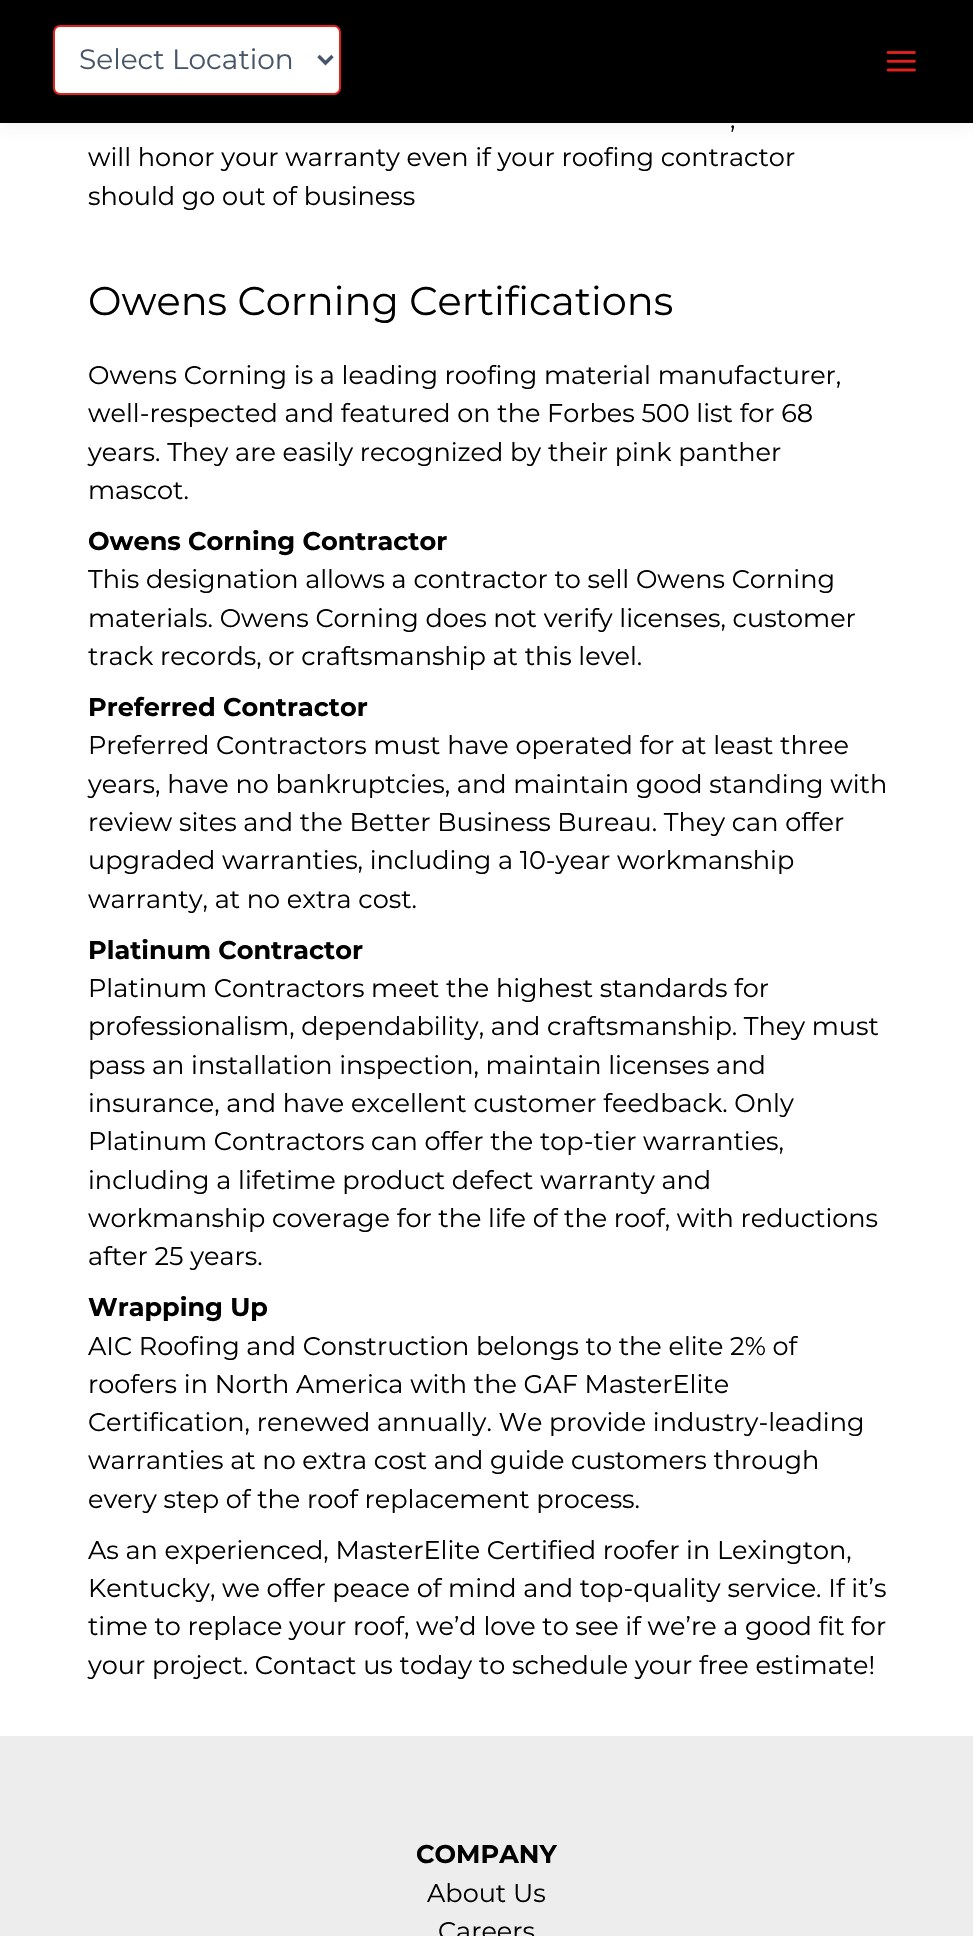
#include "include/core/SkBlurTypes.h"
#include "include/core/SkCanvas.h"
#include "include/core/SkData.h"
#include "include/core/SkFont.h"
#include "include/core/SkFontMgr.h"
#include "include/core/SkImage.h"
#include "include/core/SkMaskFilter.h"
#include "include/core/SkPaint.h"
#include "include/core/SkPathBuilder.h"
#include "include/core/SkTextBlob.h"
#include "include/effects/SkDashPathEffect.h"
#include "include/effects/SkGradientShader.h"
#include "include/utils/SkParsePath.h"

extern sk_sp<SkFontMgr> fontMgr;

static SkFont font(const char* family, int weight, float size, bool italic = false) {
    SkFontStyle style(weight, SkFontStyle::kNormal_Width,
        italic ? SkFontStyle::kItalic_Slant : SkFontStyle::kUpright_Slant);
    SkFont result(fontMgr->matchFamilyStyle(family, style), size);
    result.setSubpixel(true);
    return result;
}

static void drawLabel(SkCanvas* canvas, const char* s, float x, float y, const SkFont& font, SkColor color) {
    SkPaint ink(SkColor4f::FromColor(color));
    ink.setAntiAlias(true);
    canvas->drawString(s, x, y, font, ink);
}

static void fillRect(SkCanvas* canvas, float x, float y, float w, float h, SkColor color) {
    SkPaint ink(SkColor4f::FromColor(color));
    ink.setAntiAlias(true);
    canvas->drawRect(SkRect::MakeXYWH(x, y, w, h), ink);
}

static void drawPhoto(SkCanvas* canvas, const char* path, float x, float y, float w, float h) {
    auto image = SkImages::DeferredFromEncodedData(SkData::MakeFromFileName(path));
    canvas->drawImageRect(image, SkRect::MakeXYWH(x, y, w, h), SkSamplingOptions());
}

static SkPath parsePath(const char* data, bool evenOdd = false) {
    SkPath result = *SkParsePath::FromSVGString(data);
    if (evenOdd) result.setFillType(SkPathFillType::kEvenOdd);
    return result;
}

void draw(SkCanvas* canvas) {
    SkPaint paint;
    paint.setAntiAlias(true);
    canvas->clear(0xFFFFFFFF);
    paint.setColor(0x12243242);
    paint.setMaskFilter(SkMaskFilter::MakeBlur(kNormal_SkBlurStyle, 9));
    canvas->drawRect(SkRect::MakeXYWH(0, 4, 973, 122), paint);
    paint.setMaskFilter(nullptr);
    fillRect(canvas, 0, 0, 973, 123, 0xFF000000);
    paint.setColor(0xFFFFFFFF);
    canvas->drawRoundRect(SkRect::MakeXYWH(54, 26, 286, 68), 6, 6, paint);
    paint.setStroke(true);
    paint.setStrokeWidth(2);
    paint.setColor(0xFFE2211C);
    canvas->drawRoundRect(SkRect::MakeXYWH(54, 26, 286, 68), 6, 6, paint);
    paint.setStrokeWidth(3.5f);
    paint.setColor(0xFF475569);
    canvas->drawPath(parsePath("M318.5 56L325.5 63L332.5 56"), paint);
    SkFont font1 = font("Montserrat", 400, 28);
    drawLabel(canvas, "Select Location", 79, 69, font1, 0xFF475569);
    drawPhoto(canvas, "assets/img1.png", 886, 51, 30, 21);
    SkFont font2 = font("Montserrat", 400, 25.55f);
    drawLabel(canvas, ",", 730, 128, font2, 0xFF000000);
    drawLabel(canvas, "will honor your warranty even if your roofing contractor", 88, 166, font2, 0xFF000000);
    drawLabel(canvas, "should go out of business", 88, 205, font2, 0xFF000000);
    SkFont font3 = font("Montserrat", 400, 39.9f);
    drawLabel(canvas, "Owens Corning Certifications", 88, 315, font3, 0xFF000000);
    drawLabel(canvas, "Owens Corning is a leading roofing material manufacturer,", 88, 384, font2, 0xFF000000);
    drawLabel(canvas, "well-respected and featured on the Forbes 500 list for 68", 88, 422, font2, 0xFF000000);
    drawLabel(canvas, "years. They are easily recognized by their pink panther", 88, 461, font2, 0xFF000000);
    drawLabel(canvas, "mascot.", 88, 499, font2, 0xFF000000);
    SkFont font4 = font("Montserrat", 700, 25.55f);
    drawLabel(canvas, "Owens Corning Contractor", 88, 550, font4, 0xFF000000);
    drawLabel(canvas, "This designation allows a contractor to sell Owens Corning", 88, 588, font2, 0xFF000000);
    drawLabel(canvas, "materials. Owens Corning does not verify licenses, customer", 88, 627, font2, 0xFF000000);
    drawLabel(canvas, "track records, or craftsmanship at this level.", 88, 665, font2, 0xFF000000);
    drawLabel(canvas, "Preferred Contractor", 88, 716, font4, 0xFF000000);
    drawLabel(canvas, "Preferred Contractors must have operated for at least three", 88, 754, font2, 0xFF000000);
    drawLabel(canvas, "years, have no bankruptcies, and maintain good standing with", 88, 793, font2, 0xFF000000);
    drawLabel(canvas, "review sites and the Better Business Bureau. They can offer", 88, 831, font2, 0xFF000000);
    drawLabel(canvas, "upgraded warranties, including a 10-year workmanship", 88, 869, font2, 0xFF000000);
    drawLabel(canvas, "warranty, at no extra cost.", 88, 908, font2, 0xFF000000);
    drawLabel(canvas, "Platinum Contractor", 88, 959, font4, 0xFF000000);
    drawLabel(canvas, "Platinum Contractors meet the highest standards for", 88, 997, font2, 0xFF000000);
    drawLabel(canvas, "professionalism, dependability, and craftsmanship. They must", 88, 1035, font2, 0xFF000000);
    drawLabel(canvas, "pass an installation inspection, maintain licenses and", 88, 1074, font2, 0xFF000000);
    drawLabel(canvas, "insurance, and have excellent customer feedback. Only", 88, 1112, font2, 0xFF000000);
    drawLabel(canvas, "Platinum Contractors can offer the top-tier warranties,", 88, 1150, font2, 0xFF000000);
    drawLabel(canvas, "including a lifetime product defect warranty and", 88, 1189, font2, 0xFF000000);
    drawLabel(canvas, "workmanship coverage for the life of the roof, with reductions", 88, 1227, font2, 0xFF000000);
    drawLabel(canvas, "after 25 years.", 88, 1265, font2, 0xFF000000);
    drawLabel(canvas, "Wrapping Up", 88, 1316, font4, 0xFF000000);
    drawLabel(canvas, "AIC Roofing and Construction belongs to the elite 2% of", 88, 1355, font2, 0xFF000000);
    drawLabel(canvas, "roofers in North America with the GAF MasterElite", 88, 1393, font2, 0xFF000000);
    drawLabel(canvas, "Certification, renewed annually. We provide industry-leading", 88, 1431, font2, 0xFF000000);
    drawLabel(canvas, "warranties at no extra cost and guide customers through", 88, 1469, font2, 0xFF000000);
    drawLabel(canvas, "every step of the roof replacement process.", 88, 1508, font2, 0xFF000000);
    drawLabel(canvas, "As an experienced, MasterElite Certified roofer in Lexington,", 88, 1559, font2, 0xFF000000);
    drawLabel(canvas, "Kentucky, we offer peace of mind and top-quality service. If it’s", 88, 1597, font2, 0xFF000000);
    drawLabel(canvas, "time to replace your roof, we’d love to see if we’re a good fit for", 88, 1635, font2, 0xFF000000);
    drawLabel(canvas, "your project. Contact us today to schedule your free estimate!", 88, 1674, font2, 0xFF000000);
    fillRect(canvas, 0, 1736, 973, 200, 0xFFEDEDED);
    drawLabel(canvas, "COMPANY", 416, 1863, font4, 0xFF000000);
    drawLabel(canvas, "About Us", 427, 1902, font2, 0xFF000000);
    drawLabel(canvas, "Careers", 438, 1940, font2, 0xFF000000);
}
